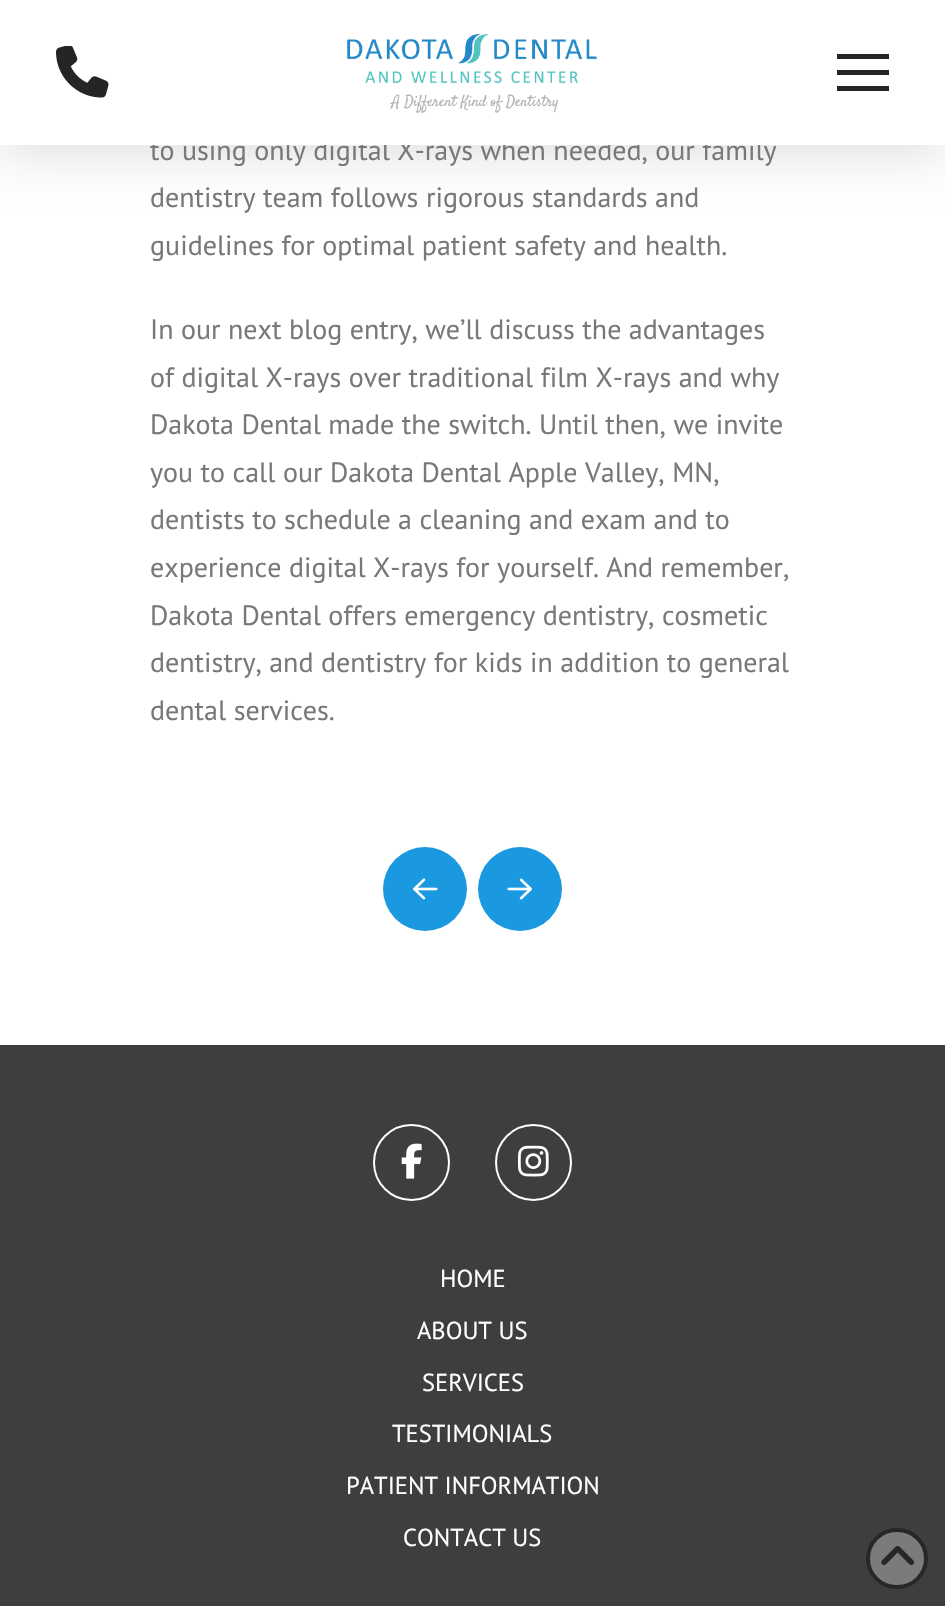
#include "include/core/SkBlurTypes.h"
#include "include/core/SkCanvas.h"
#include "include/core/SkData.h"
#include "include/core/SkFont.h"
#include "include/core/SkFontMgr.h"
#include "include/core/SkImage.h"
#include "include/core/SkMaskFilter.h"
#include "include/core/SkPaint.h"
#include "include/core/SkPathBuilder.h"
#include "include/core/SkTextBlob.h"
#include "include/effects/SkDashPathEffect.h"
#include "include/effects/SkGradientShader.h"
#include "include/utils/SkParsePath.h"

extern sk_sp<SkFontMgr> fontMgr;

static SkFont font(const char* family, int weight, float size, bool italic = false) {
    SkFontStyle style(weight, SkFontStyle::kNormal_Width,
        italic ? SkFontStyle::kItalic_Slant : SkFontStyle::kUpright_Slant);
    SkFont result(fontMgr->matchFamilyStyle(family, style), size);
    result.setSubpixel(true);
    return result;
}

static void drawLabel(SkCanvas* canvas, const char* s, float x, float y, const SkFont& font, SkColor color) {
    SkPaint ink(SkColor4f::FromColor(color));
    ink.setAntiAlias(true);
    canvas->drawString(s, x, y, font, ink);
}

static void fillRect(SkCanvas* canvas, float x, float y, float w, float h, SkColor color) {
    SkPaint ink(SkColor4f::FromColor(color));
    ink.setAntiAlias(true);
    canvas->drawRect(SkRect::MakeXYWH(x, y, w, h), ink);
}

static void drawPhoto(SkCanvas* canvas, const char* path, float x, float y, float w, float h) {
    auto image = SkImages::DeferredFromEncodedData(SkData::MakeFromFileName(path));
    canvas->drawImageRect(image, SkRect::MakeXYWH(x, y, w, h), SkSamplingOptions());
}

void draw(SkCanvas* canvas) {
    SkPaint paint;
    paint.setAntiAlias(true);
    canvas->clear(0xFFFFFFFF);
    paint.setColor(0x26000000);
    paint.setMaskFilter(SkMaskFilter::MakeBlur(kNormal_SkBlurStyle, 28));
    canvas->drawRect(SkRect::MakeXYWH(0, 4, 945, 145), paint);
    paint.setMaskFilter(nullptr);
    SkFont font1 = font("PT Sans", 400, 28);
    drawLabel(canvas, "to using only digital X-rays when needed, our family", 150, 160, font1, 0xFF787878);
    fillRect(canvas, 0, 0, 945, 145, 0xFFFFFFFF);
    drawPhoto(canvas, "assets/img1.png", 56, 46, 53, 52);
    drawPhoto(canvas, "assets/img2.png", 347, 33, 250, 80);
    fillRect(canvas, 837, 54, 52, 5, 0xFF252525);
    fillRect(canvas, 837, 70, 52, 5, 0xFF252525);
    fillRect(canvas, 837, 86, 52, 5, 0xFF252525);
    drawLabel(canvas, "dentistry team follows rigorous standards and", 150, 207, font1, 0xFF787878);
    drawLabel(canvas, "guidelines for optimal patient safety and health.", 150, 255, font1, 0xFF787878);
    drawLabel(canvas, "In our next blog entry, we’ll discuss the advantages", 150, 339, font1, 0xFF787878);
    drawLabel(canvas, "of digital X-rays over traditional film X-rays and why", 150, 387, font1, 0xFF787878);
    drawLabel(canvas, "Dakota Dental made the switch. Until then, we invite", 150, 434, font1, 0xFF787878);
    drawLabel(canvas, "you to call our Dakota Dental Apple Valley, MN,", 150, 482, font1, 0xFF787878);
    drawLabel(canvas, "dentists to schedule a cleaning and exam and to", 150, 529, font1, 0xFF787878);
    drawLabel(canvas, "experience digital X-rays for yourself. And remember,", 150, 577, font1, 0xFF787878);
    drawLabel(canvas, "Dakota Dental offers emergency dentistry, cosmetic", 150, 625, font1, 0xFF787878);
    drawLabel(canvas, "dentistry, and dentistry for kids in addition to general", 150, 672, font1, 0xFF787878);
    drawLabel(canvas, "dental services.", 150, 720, font1, 0xFF787878);
    paint.setColor(0xFF1B99E0);
    canvas->drawCircle(425, 889, 42, paint);
    drawPhoto(canvas, "assets/img3.png", 413, 878, 25, 22);
    canvas->drawCircle(520, 889, 42, paint);
    drawPhoto(canvas, "assets/img4.png", 507, 878, 25, 22);
    fillRect(canvas, 0, 1045, 945, 561, 0xFF3E3E3E);
    paint.setStroke(true);
    paint.setStrokeWidth(2);
    paint.setColor(0xFFFFFFFF);
    canvas->drawCircle(411.5f, 1162.5f, 37.5f, paint);
    drawPhoto(canvas, "assets/img5.png", 401, 1143, 21, 36);
    canvas->drawCircle(533.5f, 1162.5f, 37.5f, paint);
    drawPhoto(canvas, "assets/img6.png", 518, 1145, 31, 32);
    SkFont font2 = font("PT Sans", 400, 24.5f);
    drawLabel(canvas, "HOME", 440, 1287, font2, 0xFFFFFFFF);
    drawLabel(canvas, "ABOUT US", 417, 1339, font2, 0xFFFFFFFF);
    drawLabel(canvas, "SERVICES", 422, 1391, font2, 0xFFFFFFFF);
    drawLabel(canvas, "TESTIMONIALS", 392, 1442, font2, 0xFFFFFFFF);
    drawLabel(canvas, "PATIENT INFORMATION", 346, 1494, font2, 0xFFFFFFFF);
    drawLabel(canvas, "CONTACT US", 403, 1546, font2, 0xFFFFFFFF);
    paint.setStroke(false);
    paint.setColor(0xFF7B7B7B);
    canvas->drawRoundRect(SkRect::MakeXYWH(868, 1530, 58, 57), 28.5f, 28.5f, paint);
    paint.setStroke(true);
    paint.setStrokeWidth(4);
    paint.setColor(0xFF272727);
    canvas->drawRoundRect(SkRect::MakeXYWH(868, 1530, 58, 57), 28.5f, 28.5f, paint);
    drawPhoto(canvas, "assets/img7.png", 881, 1546, 33, 19);
}
